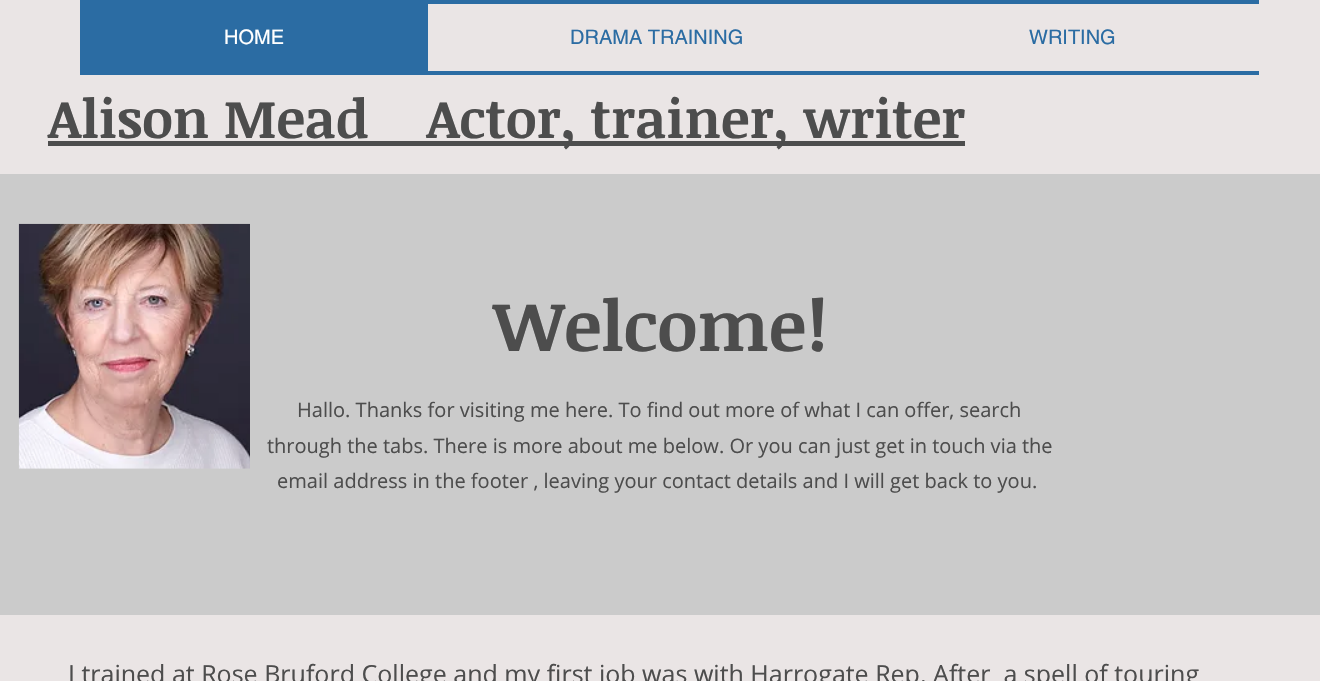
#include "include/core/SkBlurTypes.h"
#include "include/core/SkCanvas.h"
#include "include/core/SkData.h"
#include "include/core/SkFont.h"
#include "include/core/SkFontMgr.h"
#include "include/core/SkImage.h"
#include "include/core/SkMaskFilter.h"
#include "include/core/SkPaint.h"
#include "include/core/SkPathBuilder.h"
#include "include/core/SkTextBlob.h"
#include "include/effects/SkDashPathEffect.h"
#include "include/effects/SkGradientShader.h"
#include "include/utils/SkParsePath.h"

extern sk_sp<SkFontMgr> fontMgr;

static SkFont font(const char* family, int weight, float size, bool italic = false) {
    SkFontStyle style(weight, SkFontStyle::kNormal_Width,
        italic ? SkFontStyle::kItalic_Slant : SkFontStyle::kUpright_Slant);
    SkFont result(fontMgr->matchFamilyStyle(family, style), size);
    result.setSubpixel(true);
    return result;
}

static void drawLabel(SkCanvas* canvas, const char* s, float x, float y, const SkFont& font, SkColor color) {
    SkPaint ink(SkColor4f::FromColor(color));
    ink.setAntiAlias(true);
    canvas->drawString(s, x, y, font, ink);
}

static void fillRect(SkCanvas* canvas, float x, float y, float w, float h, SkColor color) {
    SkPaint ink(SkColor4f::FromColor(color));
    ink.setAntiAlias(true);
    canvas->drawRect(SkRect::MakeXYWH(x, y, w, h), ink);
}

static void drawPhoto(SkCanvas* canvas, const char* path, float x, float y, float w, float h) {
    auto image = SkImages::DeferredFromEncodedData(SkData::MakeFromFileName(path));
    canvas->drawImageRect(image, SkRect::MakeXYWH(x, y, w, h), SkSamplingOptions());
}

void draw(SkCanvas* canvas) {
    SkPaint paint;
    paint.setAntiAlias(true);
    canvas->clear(0xFFEAE5E5);
    fillRect(canvas, 80, 0, 1179, 4, 0xFF2B6CA3);
    fillRect(canvas, 80, 71, 1179, 4, 0xFF2B6CA3);
    fillRect(canvas, 80, 4, 348, 67, 0xFF2B6CA3);
    SkFont font1 = font("helvetica", 400, 20);
    drawLabel(canvas, "HOME", 224, 44, font1, 0xFFFFFFFF);
    drawLabel(canvas, "DRAMA TRAINING", 570, 44, font1, 0xFF2B6CA3);
    drawLabel(canvas, "WRITING", 1029, 44, font1, 0xFF2B6CA3);
    fillRect(canvas, 48, 141, 917, 5, 0xFF4D4D4D);
    SkFont font2 = font("Noticia Text", 700, 53.75f);
    drawLabel(canvas, "Alison Mead    Actor, trainer, writer", 48, 138, font2, 0xFF4D4D4D);
    fillRect(canvas, 0, 174, 1320, 441, 0xFFCBCBCB);
    drawPhoto(canvas, "assets/img1.png", 18, 223, 232, 246);
    SkFont font3 = font("Noticia Text", 700, 70);
    drawLabel(canvas, "Welcome!", 493, 351, font3, 0xFF4D4D4D);
    SkFont font4 = font("Open Sans", 400, 20);
    drawLabel(canvas, "Hallo. Thanks for visiting me here. To find out more of what I can offer, search", 297, 417, font4, 0xFF4D4D4D);
    drawLabel(canvas, "through the tabs. There is more about me below. Or you can just get in touch via the", 267, 453, font4, 0xFF4D4D4D);
    drawLabel(canvas, "email address in the footer , leaving your contact details and I will get back to you.", 277, 488, font4, 0xFF4D4D4D);
    SkFont font5 = font("Open Sans", 400, 25);
    drawLabel(canvas, "I trained at Rose Bruford College and my first job was with Harrogate Rep. After  a spell of touring", 68, 683, font5, 0xFF4D4D4D);
}
